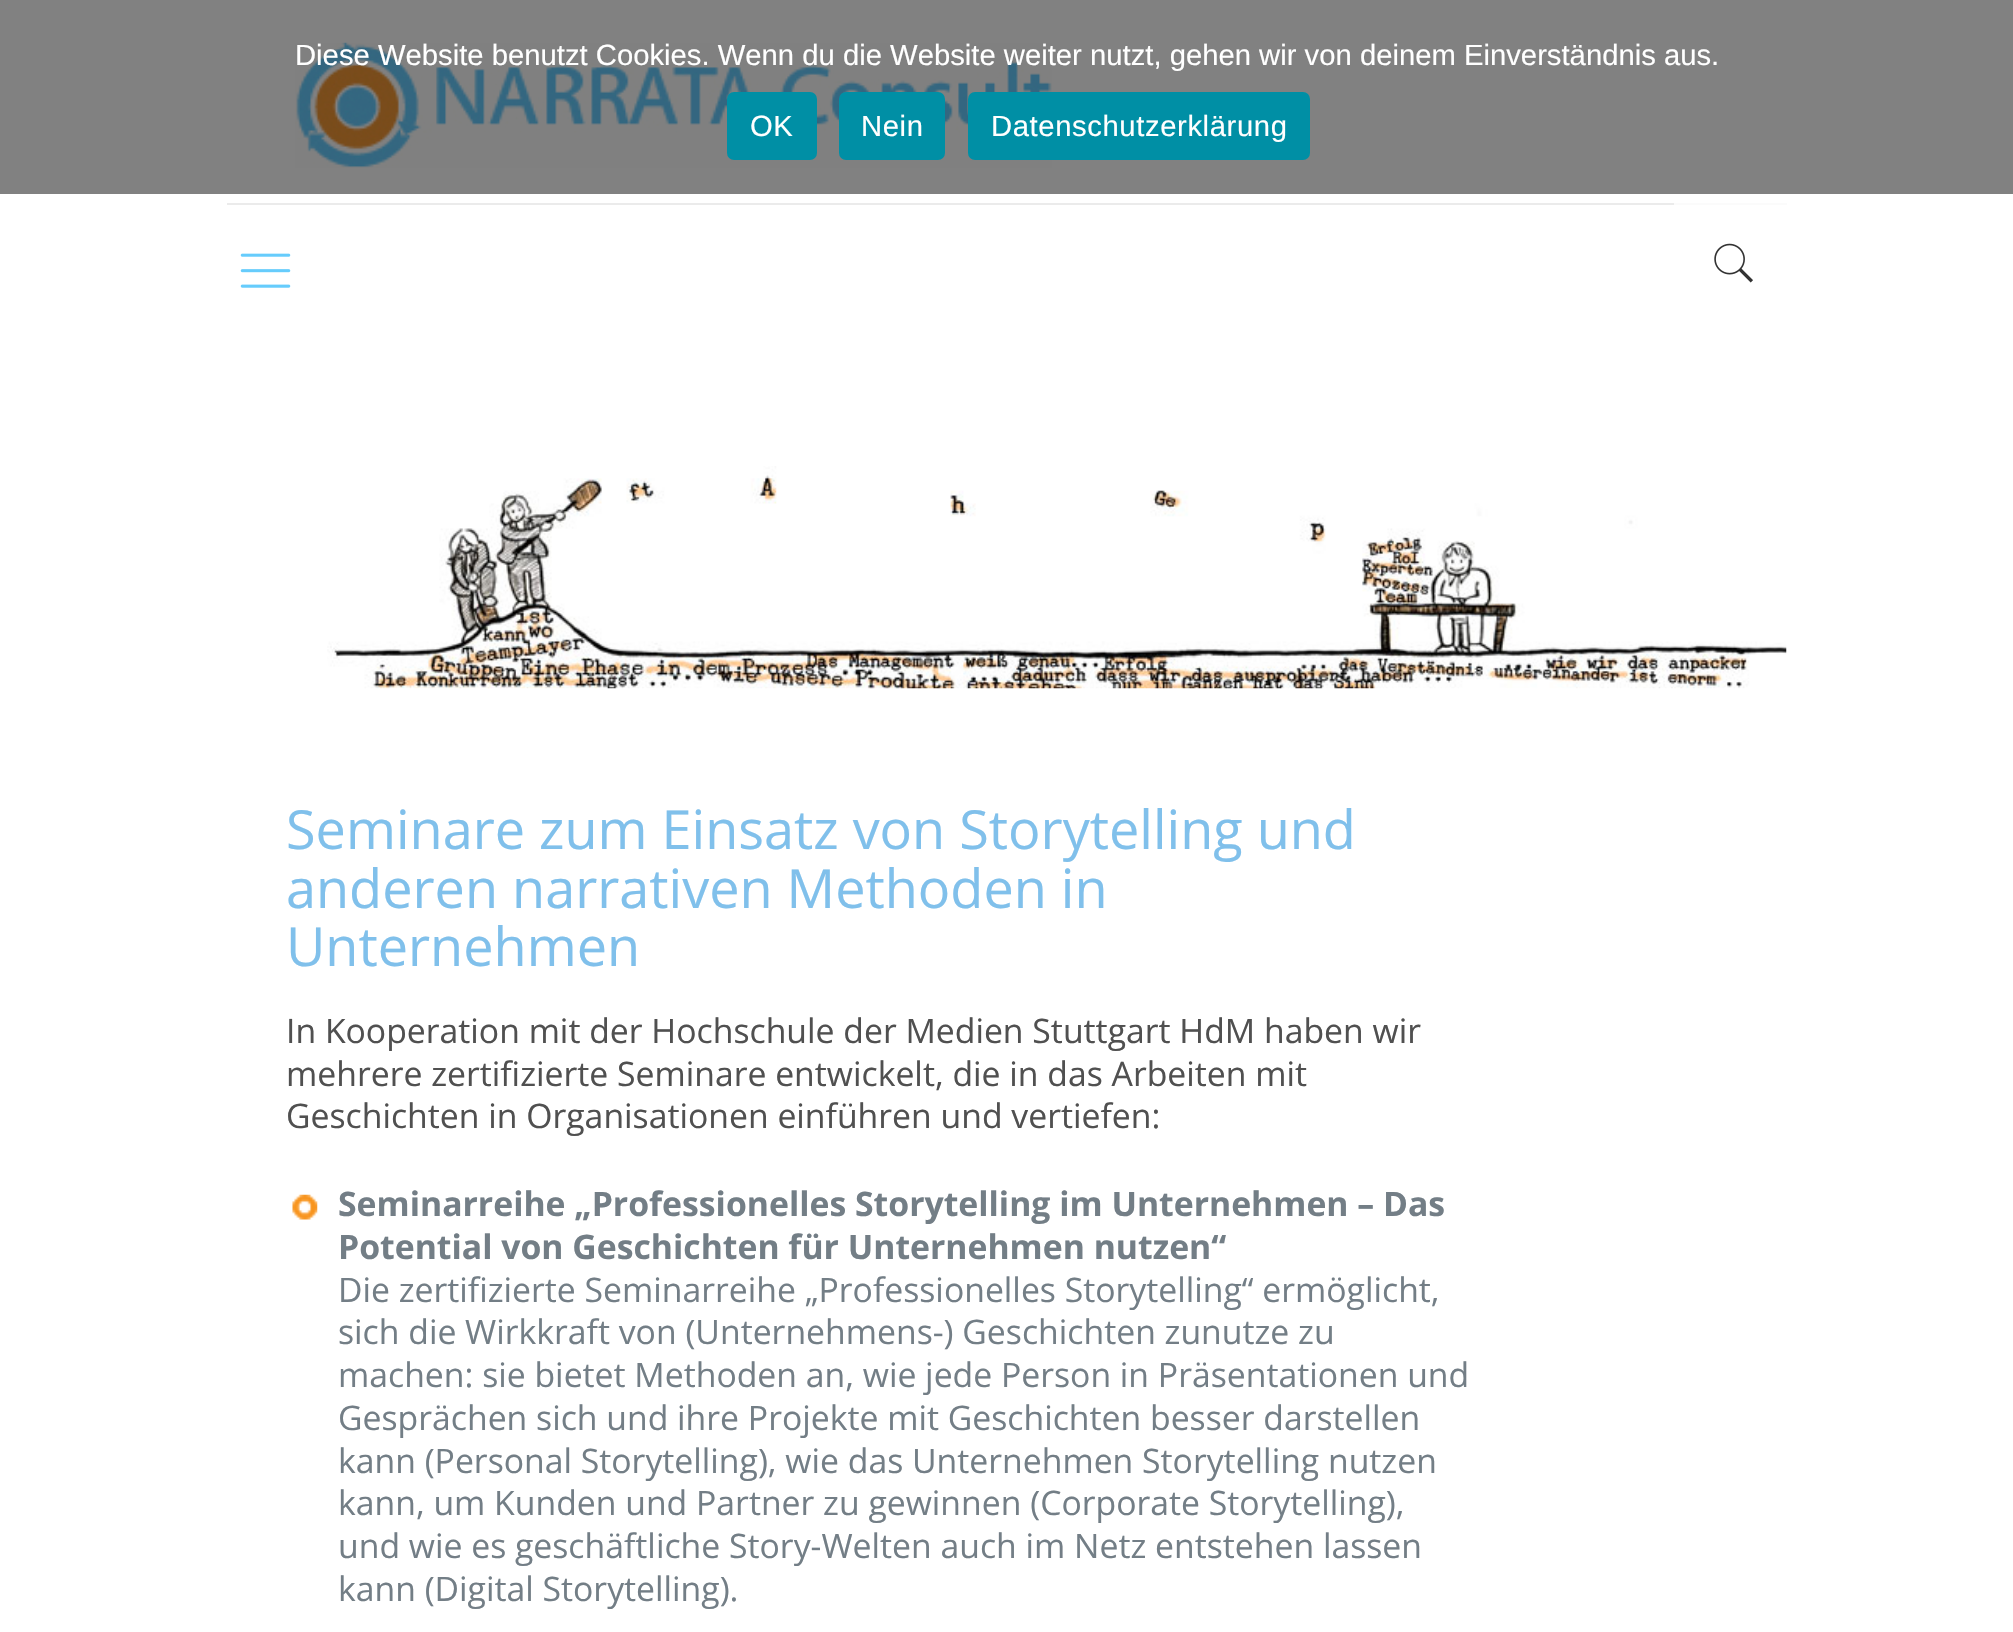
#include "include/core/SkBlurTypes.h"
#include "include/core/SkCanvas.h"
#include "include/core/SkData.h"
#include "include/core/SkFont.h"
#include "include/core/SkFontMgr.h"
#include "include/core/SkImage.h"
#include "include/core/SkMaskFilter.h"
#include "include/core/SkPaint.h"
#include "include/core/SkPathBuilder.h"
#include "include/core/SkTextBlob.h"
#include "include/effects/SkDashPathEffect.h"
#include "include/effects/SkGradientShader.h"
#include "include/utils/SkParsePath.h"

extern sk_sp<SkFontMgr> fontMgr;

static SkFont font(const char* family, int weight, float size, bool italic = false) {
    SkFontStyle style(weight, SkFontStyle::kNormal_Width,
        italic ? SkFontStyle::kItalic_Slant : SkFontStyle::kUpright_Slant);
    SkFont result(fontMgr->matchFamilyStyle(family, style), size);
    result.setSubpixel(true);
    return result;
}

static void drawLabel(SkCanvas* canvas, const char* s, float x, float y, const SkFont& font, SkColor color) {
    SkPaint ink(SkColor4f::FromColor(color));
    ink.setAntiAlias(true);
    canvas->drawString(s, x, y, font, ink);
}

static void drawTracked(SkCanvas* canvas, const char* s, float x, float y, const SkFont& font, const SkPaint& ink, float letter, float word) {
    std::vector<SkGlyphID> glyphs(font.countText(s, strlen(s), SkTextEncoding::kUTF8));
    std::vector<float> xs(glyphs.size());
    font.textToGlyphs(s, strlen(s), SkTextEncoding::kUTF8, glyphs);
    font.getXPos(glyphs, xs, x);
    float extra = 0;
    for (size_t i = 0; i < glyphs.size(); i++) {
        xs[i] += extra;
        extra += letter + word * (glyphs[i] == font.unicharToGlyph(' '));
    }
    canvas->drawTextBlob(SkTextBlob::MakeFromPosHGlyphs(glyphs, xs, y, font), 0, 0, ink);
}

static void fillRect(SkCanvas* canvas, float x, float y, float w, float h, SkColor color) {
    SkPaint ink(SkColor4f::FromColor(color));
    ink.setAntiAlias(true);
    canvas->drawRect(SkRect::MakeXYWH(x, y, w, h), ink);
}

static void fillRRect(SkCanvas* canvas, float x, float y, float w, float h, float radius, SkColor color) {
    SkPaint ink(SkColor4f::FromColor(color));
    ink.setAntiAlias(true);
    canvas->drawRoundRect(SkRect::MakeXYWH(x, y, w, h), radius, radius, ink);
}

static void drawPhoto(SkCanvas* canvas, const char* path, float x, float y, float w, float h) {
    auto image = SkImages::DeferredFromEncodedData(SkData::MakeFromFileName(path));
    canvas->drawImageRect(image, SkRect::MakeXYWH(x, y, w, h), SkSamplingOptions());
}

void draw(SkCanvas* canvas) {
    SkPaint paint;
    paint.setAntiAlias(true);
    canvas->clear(0xFFFFFFFF);
    fillRect(canvas, 0, 0, 2013, 194, 0xFF818181);
    drawPhoto(canvas, "assets/img1.png", 295, 42, 757, 126);
    SkFont font1 = font("Liberation Sans", 400, 29.25f);
    drawLabel(canvas, "Diese Website benutzt Cookies. Wenn du die Website weiter nutzt, gehen wir von deinem Einverständnis aus.", 295, 65, font1, 0xFFFFFFFF);
    fillRRect(canvas, 727, 92, 90, 68, 7, 0xFF008FA5);
    paint.setColor(0xFFFFFFFF);
    drawTracked(canvas, "OK", 750, 136, font1, paint, 0.6f, 0);
    fillRRect(canvas, 839, 92, 106, 68, 7, 0xFF008FA5);
    drawTracked(canvas, "Nein", 861, 136, font1, paint, 0.6f, 0);
    fillRRect(canvas, 968, 92, 342, 68, 7, 0xFF008FA5);
    drawTracked(canvas, "Datenschutzerklärung", 991, 136, font1, paint, 0.6f, 0);
    fillRect(canvas, 227, 203, 1447, 2, 0xFFEBEBEB);
    fillRect(canvas, 1674, 203, 113, 2, 0xFFFBFBFB);
    drawPhoto(canvas, "assets/img2.png", 240, 253, 51, 35);
    drawPhoto(canvas, "assets/img3.png", 1714, 243, 39, 40);
    drawPhoto(canvas, "assets/img4.png", 327, 466, 1460, 223);
    SkFont font2 = font("Open Sans", 400, 54);
    drawLabel(canvas, "Seminare zum Einsatz von Storytelling und", 286, 849, font2, 0xFF80C0EB);
    drawLabel(canvas, "anderen narrativen Methoden in", 286, 908, font2, 0xFF80C0EB);
    drawLabel(canvas, "Unternehmen", 286, 966, font2, 0xFF80C0EB);
    SkFont font3 = font("Open Sans", 400, 33.75f);
    drawLabel(canvas, "In Kooperation mit der Hochschule der Medien Stuttgart HdM haben wir", 286, 1043, font3, 0xFF505050);
    drawLabel(canvas, "mehrere zertifizierte Seminare entwickelt, die in das Arbeiten mit", 286, 1086, font3, 0xFF505050);
    drawLabel(canvas, "Geschichten in Organisationen einführen und vertiefen:", 286, 1128, font3, 0xFF505050);
    drawPhoto(canvas, "assets/img5.png", 292, 1194, 26, 26);
    SkFont font4 = font("Open Sans", 700, 33.75f);
    drawLabel(canvas, "Seminarreihe „Professionelles Storytelling im Unternehmen – Das", 338, 1216, font4, 0xFF737E86);
    drawLabel(canvas, "Potential von Geschichten für Unternehmen nutzen“", 338, 1259, font4, 0xFF737E86);
    drawLabel(canvas, "Die zertifizierte Seminarreihe „Professionelles Storytelling“ ermöglicht,", 338, 1302, font3, 0xFF737E86);
    drawLabel(canvas, "sich die Wirkkraft von (Unternehmens-) Geschichten zunutze zu", 338, 1344, font3, 0xFF737E86);
    drawLabel(canvas, "machen: sie bietet Methoden an, wie jede Person in Präsentationen und", 338, 1387, font3, 0xFF737E86);
    drawLabel(canvas, "Gesprächen sich und ihre Projekte mit Geschichten besser darstellen", 338, 1430, font3, 0xFF737E86);
    drawLabel(canvas, "kann (Personal Storytelling), wie das Unternehmen Storytelling nutzen", 338, 1473, font3, 0xFF737E86);
    drawLabel(canvas, "kann, um Kunden und Partner zu gewinnen (Corporate Storytelling),", 338, 1515, font3, 0xFF737E86);
    drawLabel(canvas, "und wie es geschäftliche Story-Welten auch im Netz entstehen lassen", 338, 1558, font3, 0xFF737E86);
    drawLabel(canvas, "kann (Digital Storytelling).", 338, 1601, font3, 0xFF737E86);
}
